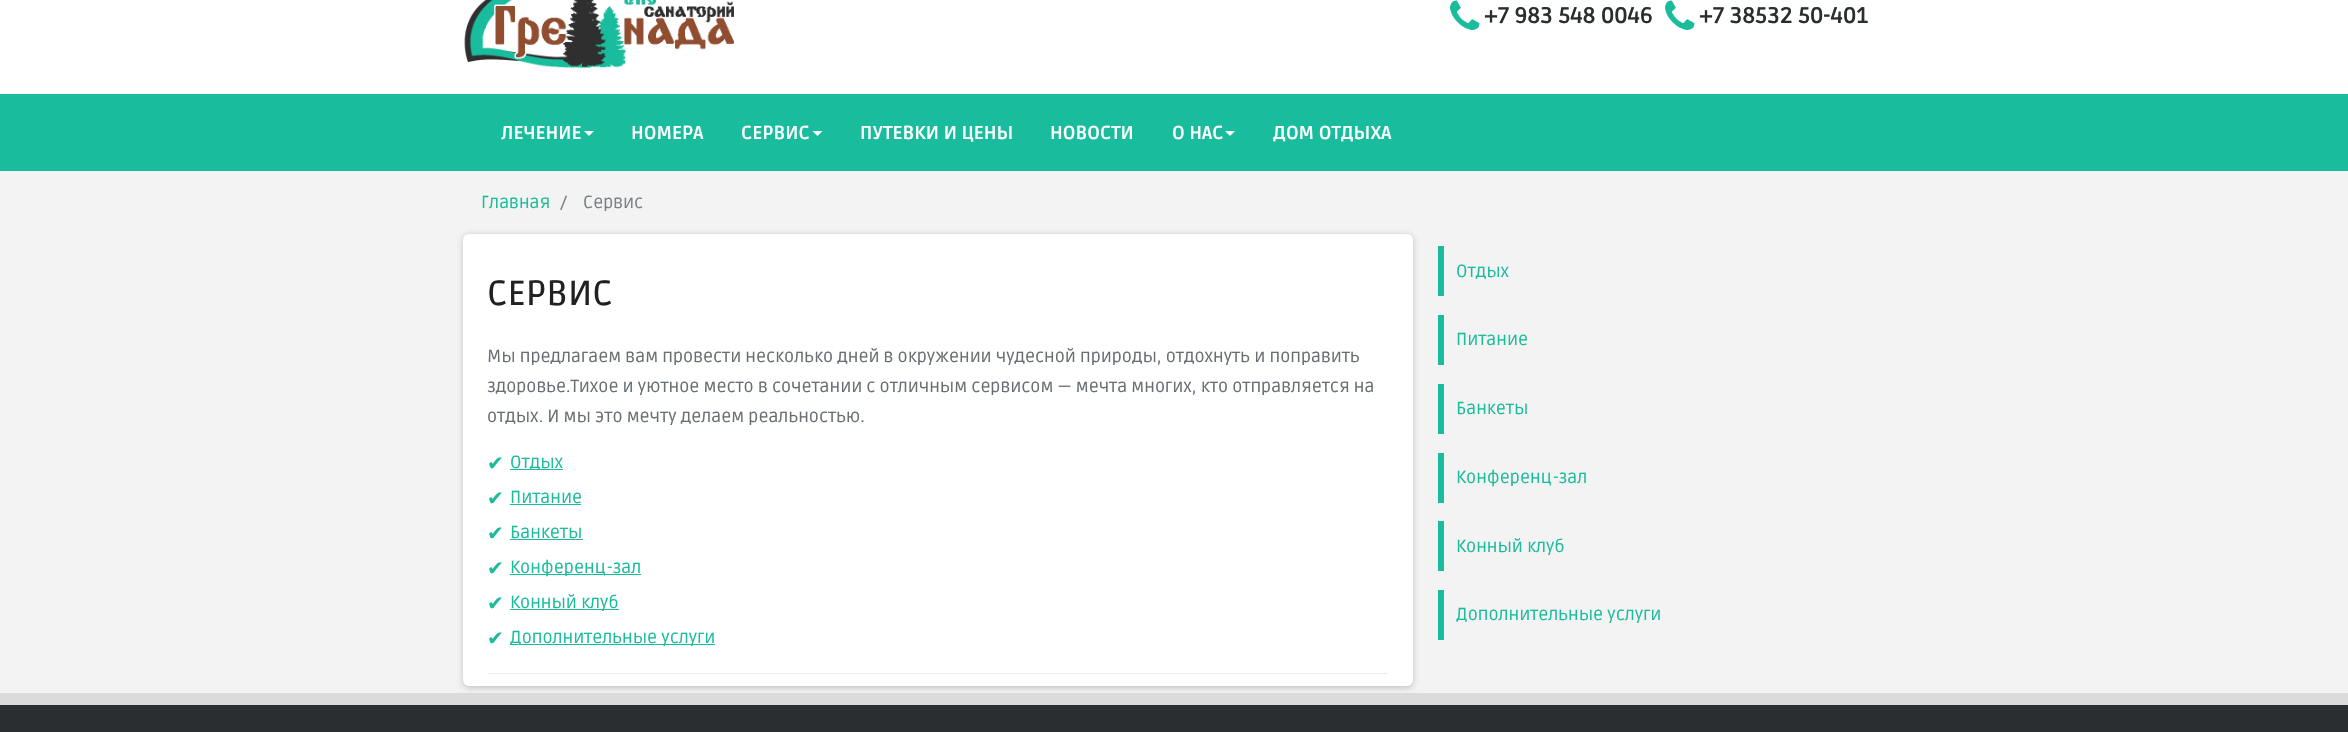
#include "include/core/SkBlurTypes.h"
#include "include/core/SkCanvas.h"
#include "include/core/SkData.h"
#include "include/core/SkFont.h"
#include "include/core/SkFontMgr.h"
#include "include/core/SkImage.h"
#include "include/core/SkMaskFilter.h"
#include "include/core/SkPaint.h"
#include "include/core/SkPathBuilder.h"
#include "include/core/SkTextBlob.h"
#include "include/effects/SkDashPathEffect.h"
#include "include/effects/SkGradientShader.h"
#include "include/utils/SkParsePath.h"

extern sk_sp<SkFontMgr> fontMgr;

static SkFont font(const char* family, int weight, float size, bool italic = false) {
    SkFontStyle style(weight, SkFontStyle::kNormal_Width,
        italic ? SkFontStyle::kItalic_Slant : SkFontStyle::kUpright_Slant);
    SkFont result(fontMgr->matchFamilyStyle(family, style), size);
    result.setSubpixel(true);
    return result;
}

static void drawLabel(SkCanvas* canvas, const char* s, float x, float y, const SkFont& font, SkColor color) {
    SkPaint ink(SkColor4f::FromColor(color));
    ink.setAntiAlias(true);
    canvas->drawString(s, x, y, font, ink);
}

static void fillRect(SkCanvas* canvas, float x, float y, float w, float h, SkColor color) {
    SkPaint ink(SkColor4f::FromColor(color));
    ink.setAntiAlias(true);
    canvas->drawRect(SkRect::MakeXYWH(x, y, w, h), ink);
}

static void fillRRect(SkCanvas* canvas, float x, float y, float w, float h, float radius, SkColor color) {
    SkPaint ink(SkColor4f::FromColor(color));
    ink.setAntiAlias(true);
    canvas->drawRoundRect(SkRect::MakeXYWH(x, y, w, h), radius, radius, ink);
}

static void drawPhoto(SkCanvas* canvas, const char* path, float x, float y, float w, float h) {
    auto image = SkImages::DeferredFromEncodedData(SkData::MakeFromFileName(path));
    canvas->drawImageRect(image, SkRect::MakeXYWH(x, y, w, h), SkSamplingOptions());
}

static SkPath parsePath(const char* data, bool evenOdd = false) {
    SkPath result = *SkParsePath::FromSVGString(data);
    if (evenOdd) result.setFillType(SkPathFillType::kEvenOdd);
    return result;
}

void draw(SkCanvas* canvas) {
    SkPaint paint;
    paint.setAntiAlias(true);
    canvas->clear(0xFF19BC9C);
    fillRect(canvas, 0, 0, 2348, 94, 0xFFFFFFFF);
    drawPhoto(canvas, "assets/img1.png", 464, 0, 270, 69);
    drawPhoto(canvas, "assets/img2.png", 1450, 0, 30, 30);
    SkFont font1 = font("Ruda", 700, 22.5f);
    drawLabel(canvas, "+7 983 548 0046", 1484, 23, font1, 0xFF2B2E31);
    drawPhoto(canvas, "assets/img2.png", 1665, 0, 30, 30);
    drawLabel(canvas, "+7 38532 50-401", 1699, 23, font1, 0xFF2B2E31);
    SkFont font2 = font("Ruda", 700, 18.75f);
    drawLabel(canvas, "ЛЕЧЕНИЕ", 501, 139, font2, 0xFFFFFFFF);
    paint.setColor(0xFFFFFFFF);
    canvas->drawPath(parsePath("M584 131H594L589 136Z"), paint);
    drawLabel(canvas, "НОМЕРА", 631, 139, font2, 0xFFFFFFFF);
    drawLabel(canvas, "СЕРВИС", 741, 139, font2, 0xFFFFFFFF);
    canvas->drawPath(parsePath("M812.5 131H822.5L817.5 136Z"), paint);
    drawLabel(canvas, "ПУТЕВКИ И ЦЕНЫ", 860, 139, font2, 0xFFFFFFFF);
    drawLabel(canvas, "НОВОСТИ", 1050, 139, font2, 0xFFFFFFFF);
    drawLabel(canvas, "О НАС", 1172, 139, font2, 0xFFFFFFFF);
    canvas->drawPath(parsePath("M1225 131H1235L1230 136Z"), paint);
    drawLabel(canvas, "ДОМ ОТДЫХА", 1273, 139, font2, 0xFFFFFFFF);
    fillRect(canvas, 0, 171, 2348, 522, 0xFFF3F3F3);
    SkFont font3 = font("Ruda", 400, 17.5f);
    drawLabel(canvas, "Главная", 481, 208, font3, 0xFF1ABC9C);
    drawLabel(canvas, "/", 560, 208, font3, 0xFF798184);
    drawLabel(canvas, "Сервис", 583, 208, font3, 0xFF798184);
    paint.setColor(0x33000000);
    paint.setMaskFilter(SkMaskFilter::MakeBlur(kNormal_SkBlurStyle, 3));
    canvas->drawRoundRect(SkRect::MakeXYWH(463, 235, 950, 453), 6, 6, paint);
    paint.setMaskFilter(nullptr);
    fillRRect(canvas, 463, 234, 950, 452, 6, 0xFFFFFFFF);
    SkFont font4 = font("Ruda", 500, 35);
    drawLabel(canvas, "СЕРВИС", 487, 305, font4, 0xFF212121);
    drawLabel(canvas, "Мы предлагаем вам провести несколько дней в окружении чудесной природы, отдохнуть и поправить", 487, 362, font3, 0xFF696E74);
    drawLabel(canvas, "здоровье.Тихое и уютное место в сочетании с отличным сервисом — мечта многих, кто отправляется на", 487, 392, font3, 0xFF696E74);
    drawLabel(canvas, "отдых. И мы это мечту делаем реальностью.", 487, 422, font3, 0xFF696E74);
    SkFont font5 = font("DejaVu Sans", 400, 20);
    drawLabel(canvas, "✔", 487, 470, font5, 0xFF1ABC9C);
    fillRect(canvas, 510, 469, 53, 1, 0xFF19BC9C);
    drawLabel(canvas, "Отдых", 510, 468, font3, 0xFF1ABC9C);
    drawLabel(canvas, "✔", 487, 505, font5, 0xFF1ABC9C);
    drawLabel(canvas, "Питание", 510, 503, font3, 0xFF1ABC9C);
    fillRect(canvas, 510, 504, 71, 1, 0xFF19BC9C);
    drawLabel(canvas, "✔", 487, 540, font5, 0xFF1ABC9C);
    drawLabel(canvas, "Банкеты", 510, 538, font3, 0xFF1ABC9C);
    fillRect(canvas, 510, 539, 73, 1, 0xFF19BC9C);
    drawLabel(canvas, "✔", 487, 575, font5, 0xFF1ABC9C);
    fillRect(canvas, 510, 574, 131, 1, 0xFF19BC9C);
    drawLabel(canvas, "Конференц-зал", 510, 573, font3, 0xFF1ABC9C);
    drawLabel(canvas, "✔", 487, 610, font5, 0xFF1ABC9C);
    fillRect(canvas, 510, 609, 109, 1, 0xFF19BC9C);
    drawLabel(canvas, "Конный клуб", 510, 608, font3, 0xFF1ABC9C);
    drawLabel(canvas, "✔", 487, 645, font5, 0xFF1ABC9C);
    fillRect(canvas, 510, 644, 205, 1, 0xFF19BC9C);
    drawLabel(canvas, "Дополнительные услуги", 510, 643, font3, 0xFF1ABC9C);
    fillRect(canvas, 488, 673, 900, 1, 0xFFEEEEEE);
    fillRect(canvas, 1438, 246, 6, 50, 0xFF19BC9C);
    drawLabel(canvas, "Отдых", 1456, 277, font3, 0xFF1ABC9C);
    fillRect(canvas, 1438, 315, 6, 50, 0xFF19BC9C);
    drawLabel(canvas, "Питание", 1456, 345, font3, 0xFF1ABC9C);
    fillRect(canvas, 1438, 384, 6, 50, 0xFF19BC9C);
    drawLabel(canvas, "Банкеты", 1456, 414, font3, 0xFF1ABC9C);
    fillRect(canvas, 1438, 453, 6, 50, 0xFF19BC9C);
    drawLabel(canvas, "Конференц-зал", 1456, 483, font3, 0xFF1ABC9C);
    fillRect(canvas, 1438, 521, 6, 50, 0xFF19BC9C);
    drawLabel(canvas, "Конный клуб", 1456, 552, font3, 0xFF1ABC9C);
    fillRect(canvas, 1438, 590, 6, 50, 0xFF19BC9C);
    drawLabel(canvas, "Дополнительные услуги", 1456, 620, font3, 0xFF1ABC9C);
    paint.setColor(0xFFDBDBDB);
    canvas->drawPath(parsePath("M0 693V705H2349V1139V693Z"), paint);
    fillRect(canvas, 0, 705, 2348, 27, 0xFF2B2E31);
}
